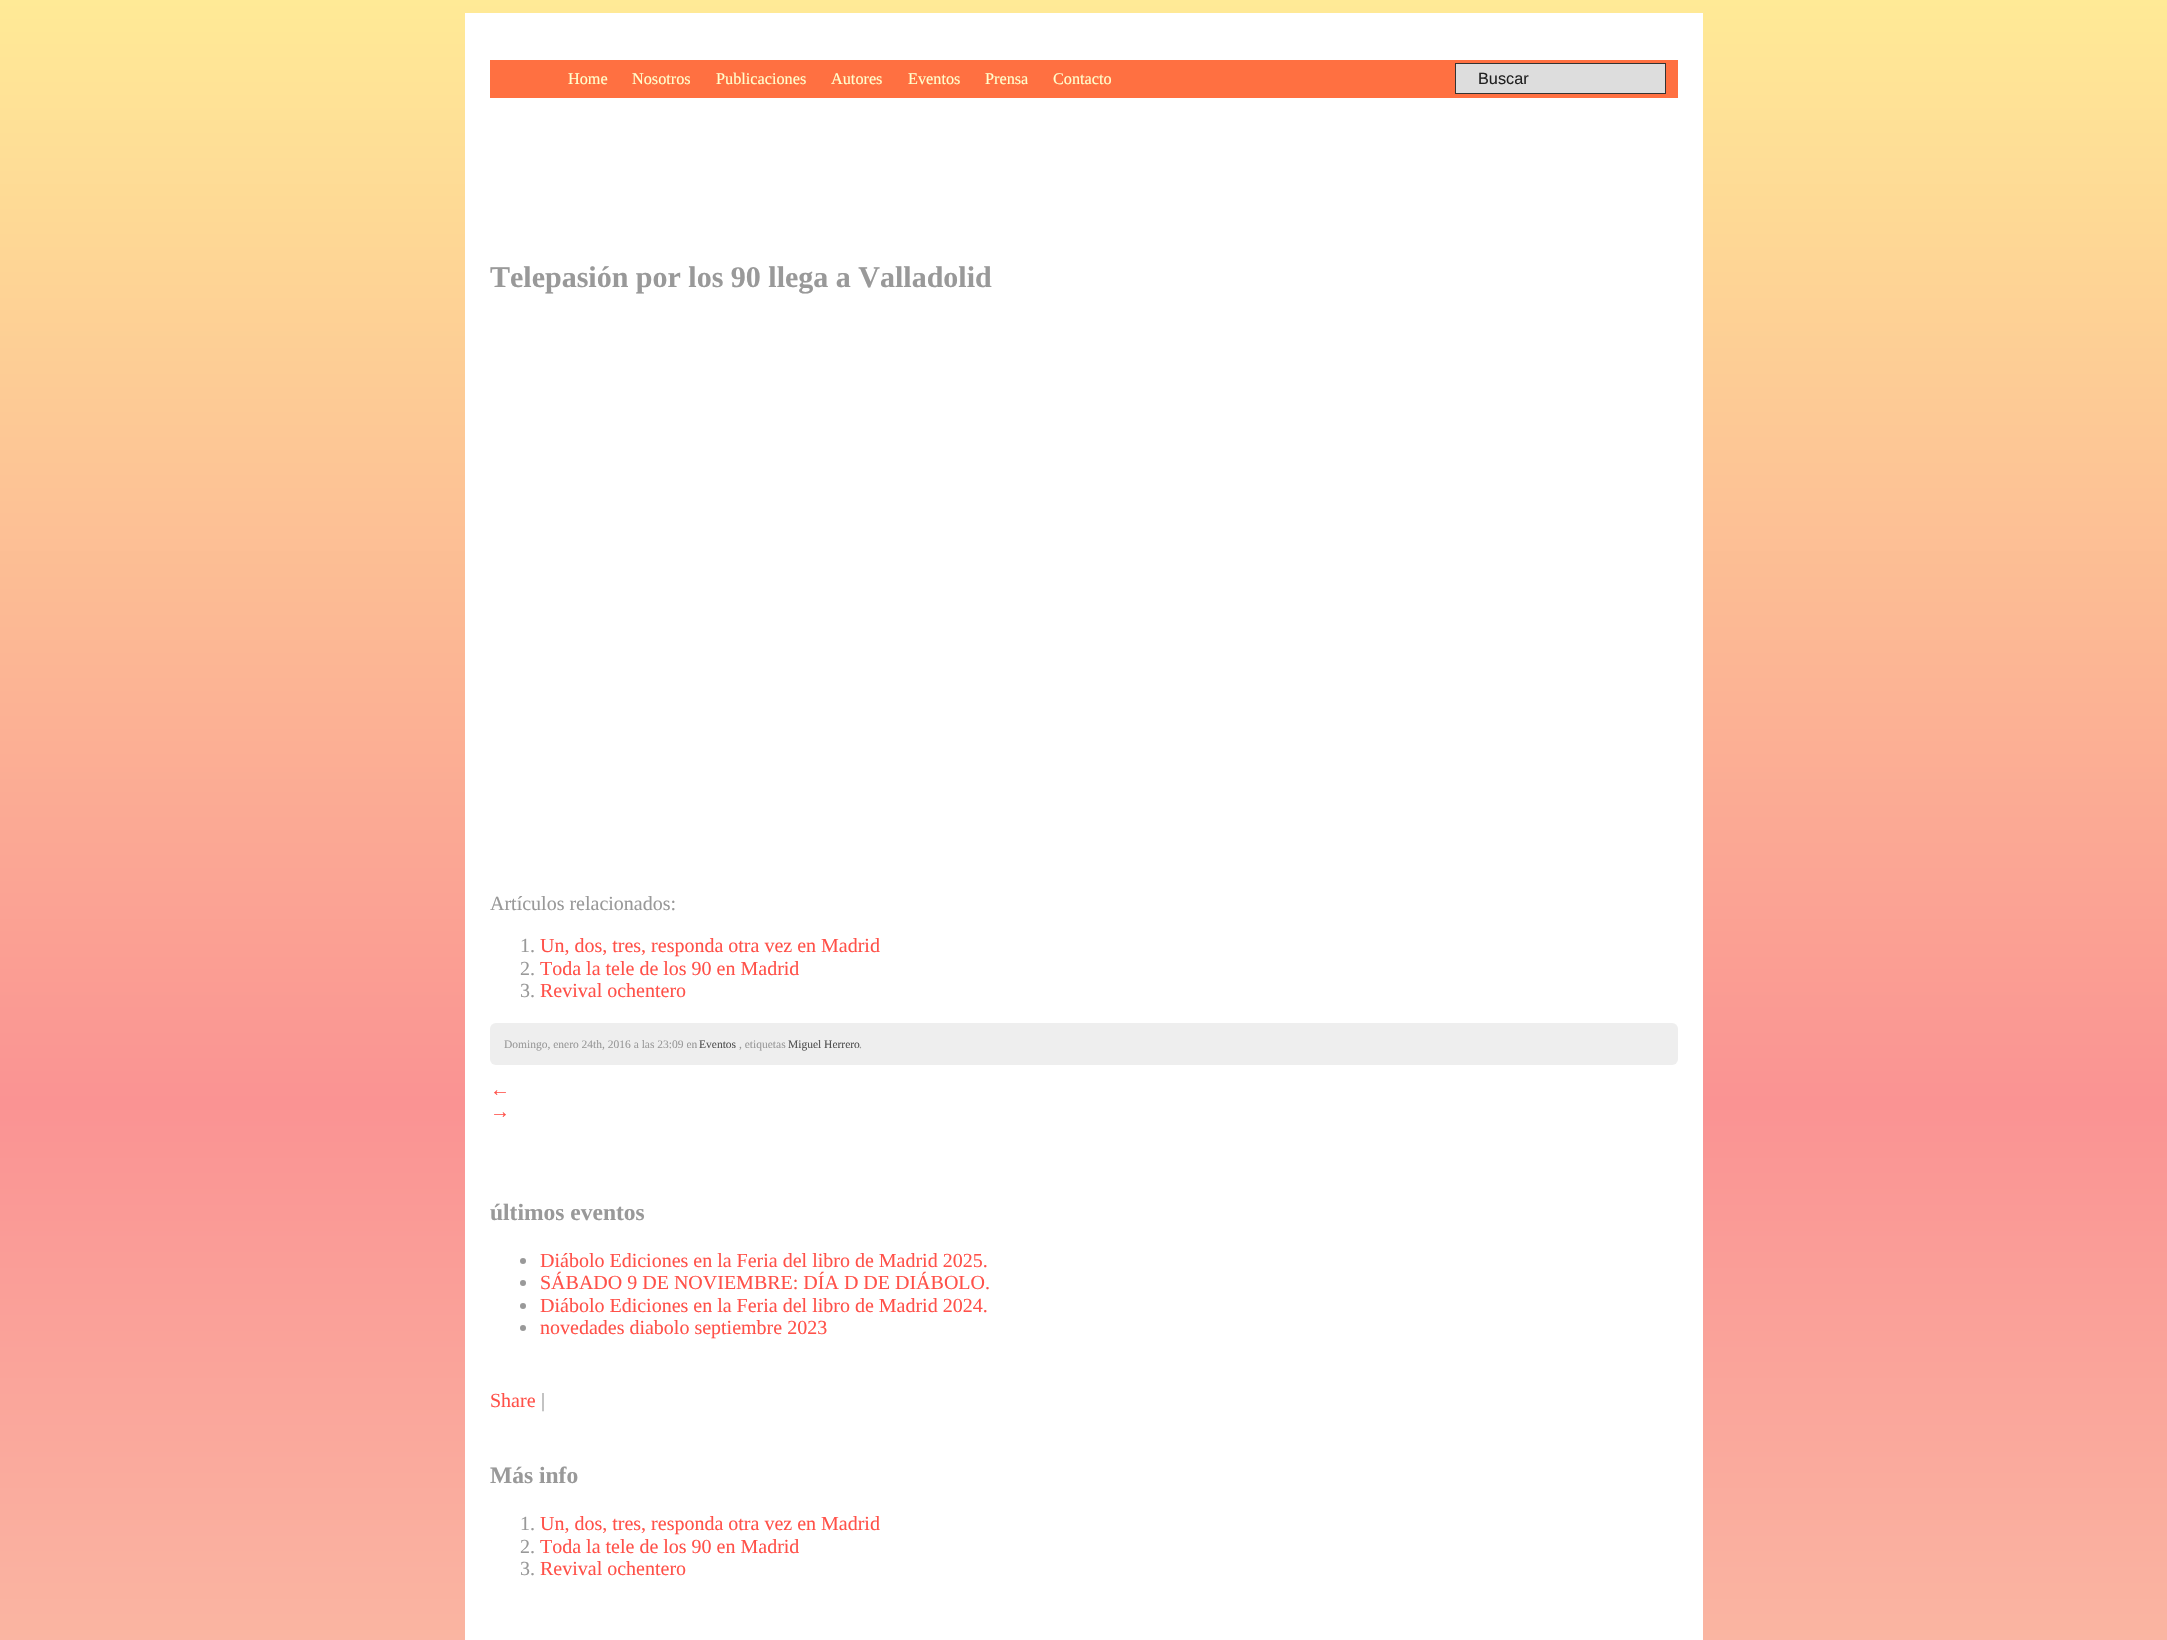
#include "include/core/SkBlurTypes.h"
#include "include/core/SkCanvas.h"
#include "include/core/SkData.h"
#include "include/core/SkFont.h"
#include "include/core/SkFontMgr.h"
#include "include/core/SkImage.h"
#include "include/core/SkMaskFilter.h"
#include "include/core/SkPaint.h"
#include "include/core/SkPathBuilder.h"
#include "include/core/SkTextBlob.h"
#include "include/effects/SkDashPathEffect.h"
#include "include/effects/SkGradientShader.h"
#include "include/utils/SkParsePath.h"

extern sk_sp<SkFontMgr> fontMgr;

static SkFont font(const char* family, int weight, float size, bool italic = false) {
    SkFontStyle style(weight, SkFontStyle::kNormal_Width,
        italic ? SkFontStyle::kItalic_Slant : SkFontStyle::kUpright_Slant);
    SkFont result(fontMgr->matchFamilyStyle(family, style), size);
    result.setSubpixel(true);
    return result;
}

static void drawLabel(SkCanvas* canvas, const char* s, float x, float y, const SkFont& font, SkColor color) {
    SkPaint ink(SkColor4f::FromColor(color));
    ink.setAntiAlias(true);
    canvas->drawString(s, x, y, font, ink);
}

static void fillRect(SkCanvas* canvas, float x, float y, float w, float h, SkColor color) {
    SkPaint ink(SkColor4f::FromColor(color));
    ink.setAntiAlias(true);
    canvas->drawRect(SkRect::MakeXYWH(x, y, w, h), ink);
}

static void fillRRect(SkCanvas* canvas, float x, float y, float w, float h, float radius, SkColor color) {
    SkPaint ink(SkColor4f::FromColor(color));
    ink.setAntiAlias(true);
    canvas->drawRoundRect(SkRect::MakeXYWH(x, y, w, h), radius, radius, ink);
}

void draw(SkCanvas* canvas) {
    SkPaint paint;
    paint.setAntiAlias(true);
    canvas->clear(0xFFFFFFFF);
    {
        const SkColor colors[] = {0xFFFFEA96, 0xFFFA9393, 0xFFFAD9B1};
        const float stops[] = {0, 0.5f, 1};
        const SkPoint ends[] = {{0, 0}, {0, 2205}};
        paint.setShader(SkGradientShader::MakeLinear(ends, colors, stops, 3, SkTileMode::kClamp));
        paint.setAlpha(255);
    }
    canvas->drawRect(SkRect::MakeXYWH(0, 0, 2167, 1640), paint);
    fillRect(canvas, 465, 13, 1238, 1627, 0xFFFFFFFF);
    fillRect(canvas, 490, 60, 1188, 38, 0xFFFF7041);
    SkFont font1 = font("Liberation Serif", 400, 16.25f);
    drawLabel(canvas, "Home", 568, 84, font1, 0xFFFFFFCC);
    drawLabel(canvas, "Nosotros", 632, 84, font1, 0xFFFFFFCC);
    drawLabel(canvas, "Publicaciones", 716, 84, font1, 0xFFFFFFCC);
    drawLabel(canvas, "Autores", 831, 84, font1, 0xFFFFFFCC);
    drawLabel(canvas, "Eventos", 908, 84, font1, 0xFFFFFFCC);
    drawLabel(canvas, "Prensa", 985, 84, font1, 0xFFFFFFCC);
    drawLabel(canvas, "Contacto", 1053, 84, font1, 0xFFFFFFCC);
    paint.setShader(nullptr);
    paint.setColor(0xFFDDDDDD);
    canvas->drawRect(SkRect::MakeXYWH(1455.5f, 63.5f, 210, 30), paint);
    paint.setStroke(true);
    paint.setStrokeWidth(1);
    paint.setColor(0xFF333333);
    canvas->drawRect(SkRect::MakeXYWH(1455.5f, 63.5f, 210, 30), paint);
    SkFont font2 = font("Liberation Sans", 400, 16.25f);
    drawLabel(canvas, "Buscar", 1478, 84, font2, 0xFF222222);
    SkFont font3 = font("Liberation Serif", 700, 30);
    drawLabel(canvas, "Telepasión por los 90 llega a Valladolid", 490, 287, font3, 0xFF999999);
    SkFont font4 = font("Liberation Serif", 400, 20);
    drawLabel(canvas, "Artículos relacionados:", 490, 910, font4, 0xFF999999);
    drawLabel(canvas, "1.", 520, 952, font4, 0xFF999999);
    drawLabel(canvas, "Un, dos, tres, responda otra vez en Madrid", 540, 952, font4, 0xFFFF5149);
    drawLabel(canvas, "2.", 520, 975, font4, 0xFF999999);
    drawLabel(canvas, "Toda la tele de los 90 en Madrid", 540, 975, font4, 0xFFFF5149);
    drawLabel(canvas, "3.", 520, 997, font4, 0xFF999999);
    drawLabel(canvas, "Revival ochentero", 540, 997, font4, 0xFFFF5149);
    fillRRect(canvas, 490, 1023, 1188, 42, 6, 0xFFEEEEEE);
    SkFont font5 = font("Liberation Serif", 400, 11.5f);
    drawLabel(canvas, "Domingo, enero 24th, 2016 a las 23:09 en", 504, 1048, font5, 0xFF999999);
    drawLabel(canvas, "Eventos", 699, 1048, font5, 0xFF515151);
    drawLabel(canvas, ", etiquetas", 739, 1048, font5, 0xFF999999);
    drawLabel(canvas, "Miguel Herrero", 788, 1048, font5, 0xFF515151);
    drawLabel(canvas, ".", 859, 1048, font5, 0xFF999999);
    drawLabel(canvas, "←", 490, 1096, font4, 0xFFFF5149);
    drawLabel(canvas, "→", 490, 1118, font4, 0xFFFF5149);
    SkFont font6 = font("Liberation Serif", 700, 23.5f);
    drawLabel(canvas, "últimos eventos", 490, 1220, font6, 0xFF999999);
    paint.setStroke(false);
    paint.setColor(0xFF999999);
    canvas->drawCircle(523, 1261, 3, paint);
    drawLabel(canvas, "Diábolo Ediciones en la Feria del libro de Madrid 2025.", 540, 1267, font4, 0xFFFF5149);
    canvas->drawCircle(523, 1283, 3, paint);
    drawLabel(canvas, "SÁBADO 9 DE NOVIEMBRE: DÍA D DE DIÁBOLO.", 540, 1289, font4, 0xFFFF5149);
    canvas->drawCircle(523, 1306, 3, paint);
    drawLabel(canvas, "Diábolo Ediciones en la Feria del libro de Madrid 2024.", 540, 1312, font4, 0xFFFF5149);
    canvas->drawCircle(523, 1328, 3, paint);
    drawLabel(canvas, "novedades diabolo septiembre 2023", 540, 1334, font4, 0xFFFF5149);
    drawLabel(canvas, "Share", 490, 1407, font4, 0xFFFF5149);
    drawLabel(canvas, "|", 541, 1407, font4, 0xFF999999);
    drawLabel(canvas, "Más info", 490, 1483, font6, 0xFF999999);
    drawLabel(canvas, "1.", 520, 1530, font4, 0xFF999999);
    drawLabel(canvas, "Un, dos, tres, responda otra vez en Madrid", 540, 1530, font4, 0xFFFF5149);
    drawLabel(canvas, "2.", 520, 1553, font4, 0xFF999999);
    drawLabel(canvas, "Toda la tele de los 90 en Madrid", 540, 1553, font4, 0xFFFF5149);
    drawLabel(canvas, "3.", 520, 1575, font4, 0xFF999999);
    drawLabel(canvas, "Revival ochentero", 540, 1575, font4, 0xFFFF5149);
}
